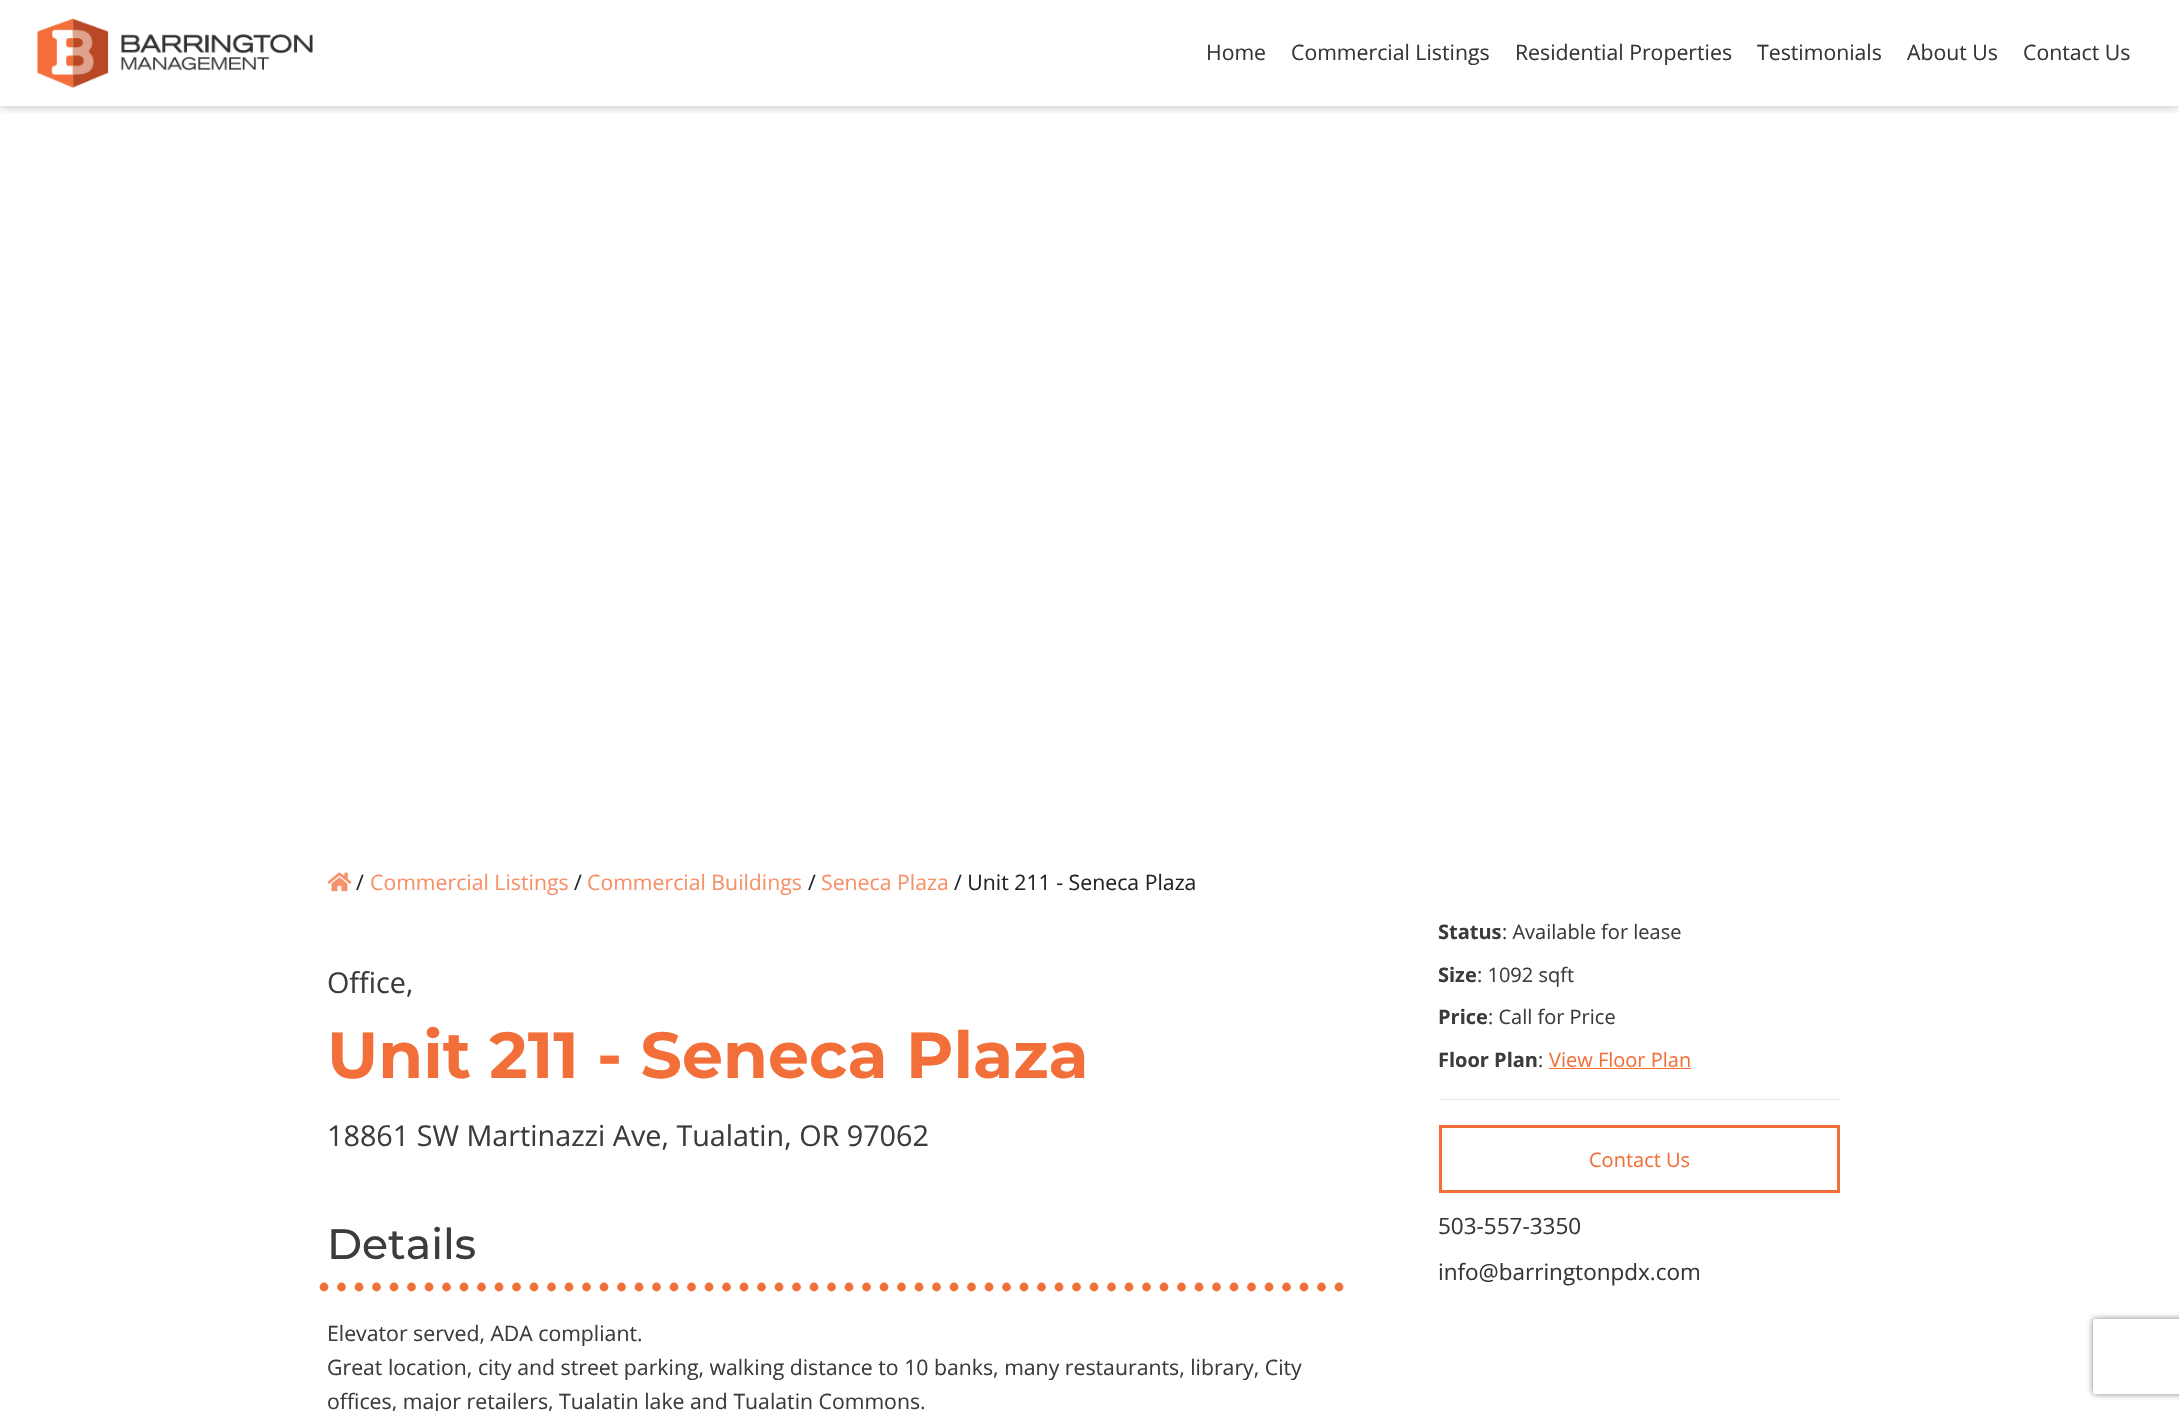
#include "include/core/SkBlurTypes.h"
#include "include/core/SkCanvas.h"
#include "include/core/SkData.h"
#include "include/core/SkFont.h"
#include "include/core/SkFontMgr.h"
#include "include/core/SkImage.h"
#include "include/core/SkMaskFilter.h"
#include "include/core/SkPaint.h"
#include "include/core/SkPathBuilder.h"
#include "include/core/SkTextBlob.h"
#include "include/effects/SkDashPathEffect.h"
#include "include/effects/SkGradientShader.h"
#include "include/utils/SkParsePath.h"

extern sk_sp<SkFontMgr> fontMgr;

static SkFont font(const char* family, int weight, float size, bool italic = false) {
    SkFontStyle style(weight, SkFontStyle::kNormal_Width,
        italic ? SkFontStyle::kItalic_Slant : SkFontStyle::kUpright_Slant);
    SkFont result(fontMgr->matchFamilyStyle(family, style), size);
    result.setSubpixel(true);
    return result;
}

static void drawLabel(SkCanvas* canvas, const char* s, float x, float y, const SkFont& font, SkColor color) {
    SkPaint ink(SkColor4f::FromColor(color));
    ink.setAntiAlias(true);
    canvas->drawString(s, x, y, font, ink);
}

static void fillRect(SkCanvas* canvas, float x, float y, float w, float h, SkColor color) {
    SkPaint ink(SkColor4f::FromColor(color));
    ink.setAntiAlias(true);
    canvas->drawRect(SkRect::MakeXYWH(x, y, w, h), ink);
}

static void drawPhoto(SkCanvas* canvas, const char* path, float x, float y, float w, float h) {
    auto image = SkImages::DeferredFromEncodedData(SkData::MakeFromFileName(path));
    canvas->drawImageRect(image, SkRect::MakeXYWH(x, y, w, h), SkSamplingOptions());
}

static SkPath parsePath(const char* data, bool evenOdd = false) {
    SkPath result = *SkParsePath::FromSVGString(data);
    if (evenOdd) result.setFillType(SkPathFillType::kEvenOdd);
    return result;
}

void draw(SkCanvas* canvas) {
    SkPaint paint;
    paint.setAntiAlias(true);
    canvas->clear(0xFFFFFFFF);
    canvas->save();
    canvas->clipRect(SkRect::MakeXYWH(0, 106, 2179, 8));
    paint.setColor(0x40333333);
    paint.setMaskFilter(SkMaskFilter::MakeBlur(kNormal_SkBlurStyle, 4.5f));
    canvas->drawRect(SkRect::MakeXYWH(0, 1, 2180, 107), paint);
    paint.setMaskFilter(nullptr);
    canvas->restore();
    drawPhoto(canvas, "assets/img1.png", 37, 18, 276, 70);
    SkFont font1 = font("Open Sans", 400, 21.25f);
    drawLabel(canvas, "Home", 1206, 60, font1, 0xFF363636);
    drawLabel(canvas, "Commercial Listings", 1291, 60, font1, 0xFF363636);
    drawLabel(canvas, "Residential Properties", 1515, 60, font1, 0xFF363636);
    drawLabel(canvas, "Testimonials", 1757, 60, font1, 0xFF363636);
    drawLabel(canvas, "About Us", 1907, 60, font1, 0xFF363636);
    drawLabel(canvas, "Contact Us", 2023, 60, font1, 0xFF363636);
    drawPhoto(canvas, "assets/img2.png", 327, 872, 25, 20);
    drawLabel(canvas, "/", 356, 890, font1, 0xFF212529);
    drawLabel(canvas, "Commercial Listings", 370, 890, font1, 0xFFF69269);
    drawLabel(canvas, "/", 574, 890, font1, 0xFF212529);
    drawLabel(canvas, "Commercial Buildings", 587, 890, font1, 0xFFF69269);
    drawLabel(canvas, "/", 808, 890, font1, 0xFF212529);
    drawLabel(canvas, "Seneca Plaza", 821, 890, font1, 0xFFF69269);
    drawLabel(canvas, "/ Unit 211 - Seneca Plaza", 954, 890, font1, 0xFF212529);
    SkFont font2 = font("Open Sans", 400, 28.75f);
    drawLabel(canvas, "Office,", 327, 993, font2, 0xFF3C3C3C);
    SkFont font3 = font("Montserrat", 700, 65);
    drawLabel(canvas, "Unit 211 - Seneca Plaza", 327, 1078, font3, 0xFFF36F39);
    drawLabel(canvas, "18861 SW Martinazzi Ave, Tualatin, OR 97062", 327, 1146, font2, 0xFF3C3C3C);
    SkFont font4 = font("Montserrat", 500, 42.5f);
    drawLabel(canvas, "Details", 327, 1259, font4, 0xFF3C3C3C);
    paint.setStroke(true);
    paint.setStrokeWidth(8.8f);
    paint.setStrokeCap(SkPaint::kRound_Cap);
    paint.setColor(0xFFF36F39);
    paint.setPathEffect(SkDashPathEffect::Make({{0, 17.5f}}, 0));
    canvas->drawPath(parsePath("M324 1287H1346"), paint);
    paint.setPathEffect(nullptr);
    drawLabel(canvas, "Elevator served, ADA compliant.", 327, 1341, font1, 0xFF3C3C3C);
    drawLabel(canvas, "Great location, city and street parking, walking distance to 10 banks, many restaurants, library, City", 327, 1375, font1, 0xFF3C3C3C);
    drawLabel(canvas, "offices, major retailers, Tualatin lake and Tualatin Commons.", 327, 1409, font1, 0xFF3C3C3C);
    SkFont font5 = font("Open Sans", 700, 20);
    drawLabel(canvas, "Status", 1438, 939, font5, 0xFF3C3C3C);
    SkFont font6 = font("Open Sans", 400, 20);
    drawLabel(canvas, ": Available for lease", 1502, 939, font6, 0xFF3C3C3C);
    drawLabel(canvas, "Size", 1438, 982, font5, 0xFF3C3C3C);
    drawLabel(canvas, ": 1092 sqft", 1477, 982, font6, 0xFF3C3C3C);
    drawLabel(canvas, "Price", 1438, 1024, font5, 0xFF3C3C3C);
    drawLabel(canvas, ": Call for Price", 1488, 1024, font6, 0xFF3C3C3C);
    drawLabel(canvas, "Floor Plan", 1438, 1067, font5, 0xFF3C3C3C);
    drawLabel(canvas, ":", 1538, 1067, font6, 0xFF3C3C3C);
    drawLabel(canvas, "View Floor Plan", 1549, 1067, font6, 0xFFF36F39);
    fillRect(canvas, 1549, 1068, 142, 1, 0xFFF36F39);
    fillRect(canvas, 1439, 1099, 401, 1, 0xFFE6E6E6);
    paint.setStrokeWidth(3);
    paint.setStrokeCap(SkPaint::kButt_Cap);
    canvas->drawRect(SkRect::MakeXYWH(1440.5f, 1126.5f, 398, 65), paint);
    drawLabel(canvas, "Contact Us", 1589, 1167, font6, 0xFFF36F39);
    SkFont font7 = font("Open Sans", 400, 22.5f);
    drawLabel(canvas, "503-557-3350", 1438, 1234, font7, 0xFF363636);
    drawLabel(canvas, "info@barringtonpdx.com", 1438, 1280, font7, 0xFF363636);
    canvas->save();
    canvas->clipPath(parsePath("M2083 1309H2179V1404H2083ZM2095.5 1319H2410.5C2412 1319 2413 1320 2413 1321.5V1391.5C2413 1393 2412 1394 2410.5 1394H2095.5C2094 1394 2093 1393 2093 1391.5V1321.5C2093 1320 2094 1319 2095.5 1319Z", true), true);
    paint.setStroke(false);
    paint.setColor(0xFF808080);
    paint.setMaskFilter(SkMaskFilter::MakeBlur(kNormal_SkBlurStyle, 3));
    canvas->drawRoundRect(SkRect::MakeXYWH(2093, 1319, 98, 75), 2.5f, 2.5f, paint);
    paint.setMaskFilter(nullptr);
    canvas->restore();
}
